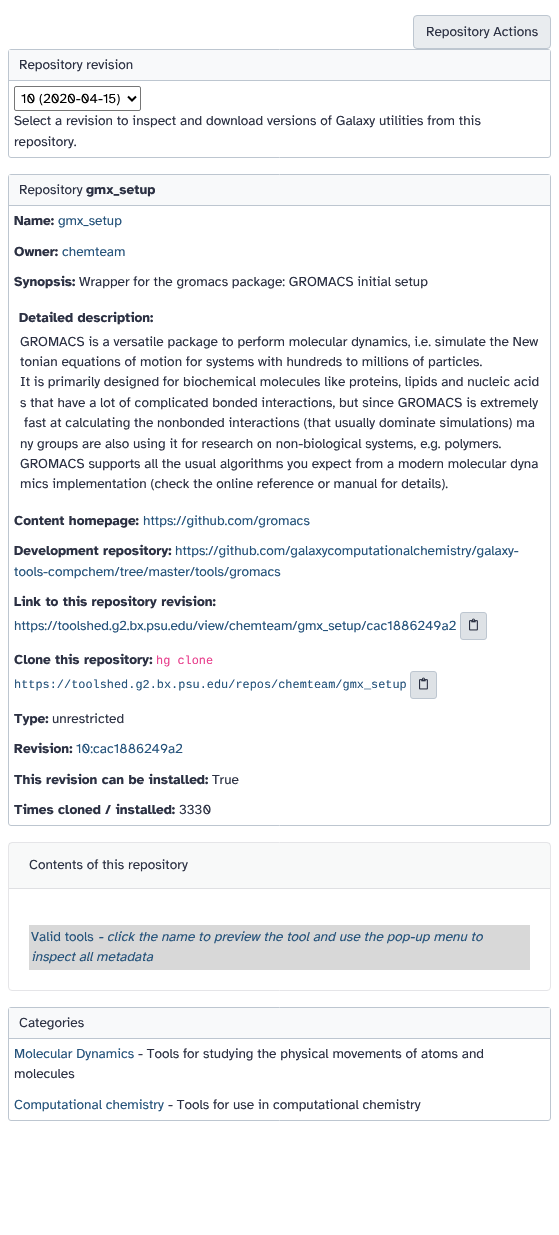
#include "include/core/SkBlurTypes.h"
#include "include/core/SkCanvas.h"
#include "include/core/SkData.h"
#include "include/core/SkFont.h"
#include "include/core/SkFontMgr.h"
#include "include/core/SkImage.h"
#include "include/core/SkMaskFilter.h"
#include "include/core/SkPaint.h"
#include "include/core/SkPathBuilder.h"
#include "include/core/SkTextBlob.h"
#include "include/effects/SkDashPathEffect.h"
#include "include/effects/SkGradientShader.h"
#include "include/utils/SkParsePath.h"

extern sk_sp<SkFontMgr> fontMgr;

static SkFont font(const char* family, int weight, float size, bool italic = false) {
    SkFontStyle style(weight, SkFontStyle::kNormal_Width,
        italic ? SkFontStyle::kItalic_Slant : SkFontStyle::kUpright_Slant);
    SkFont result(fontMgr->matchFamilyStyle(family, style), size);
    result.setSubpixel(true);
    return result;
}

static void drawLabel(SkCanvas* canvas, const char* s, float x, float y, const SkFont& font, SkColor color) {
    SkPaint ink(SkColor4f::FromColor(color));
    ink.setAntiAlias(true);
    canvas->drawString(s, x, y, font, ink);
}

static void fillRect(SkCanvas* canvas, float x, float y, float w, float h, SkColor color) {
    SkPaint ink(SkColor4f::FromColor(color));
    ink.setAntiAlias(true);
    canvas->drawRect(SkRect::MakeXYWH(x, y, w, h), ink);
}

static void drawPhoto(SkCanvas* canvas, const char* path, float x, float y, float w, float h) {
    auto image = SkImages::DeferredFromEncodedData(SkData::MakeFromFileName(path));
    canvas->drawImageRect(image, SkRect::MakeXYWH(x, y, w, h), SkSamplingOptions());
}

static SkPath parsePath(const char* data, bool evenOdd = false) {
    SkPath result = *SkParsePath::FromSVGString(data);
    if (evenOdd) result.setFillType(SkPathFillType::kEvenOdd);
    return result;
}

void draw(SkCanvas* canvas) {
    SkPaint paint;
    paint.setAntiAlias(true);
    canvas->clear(0xFFFFFFFF);
    paint.setColor(0xFFE9ECEF);
    canvas->drawRoundRect(SkRect::MakeXYWH(413.5f, 15.5f, 137, 33), 3.5f, 3.5f, paint);
    paint.setStroke(true);
    paint.setStrokeWidth(1);
    paint.setColor(0xFFBDC6D0);
    canvas->drawRoundRect(SkRect::MakeXYWH(413.5f, 15.5f, 137, 33), 3.5f, 3.5f, paint);
    SkFont font1 = font("Atkinson Hyperlegible", 400, 13.6f);
    drawLabel(canvas, "Repository Actions", 426, 36, font1, 0xFF2C3143);
    canvas->drawRoundRect(SkRect::MakeXYWH(8.5f, 49.5f, 542, 108), 2.5f, 2.5f, paint);
    fillRect(canvas, 9, 50, 541, 30, 0xFFF8F9FA);
    fillRect(canvas, 9, 80, 541, 1, 0xFFBDC6D0);
    drawLabel(canvas, "Repository revision", 19, 69, font1, 0xFF2C3143);
    paint.setColor(0xFF767676);
    canvas->drawRoundRect(SkRect::MakeXYWH(14.5f, 86.5f, 126, 24), 1.5f, 1.5f, paint);
    paint.setStrokeWidth(2);
    paint.setColor(0xFF000000);
    canvas->drawPath(parsePath("M128 96.5L132 100.5L136 96.5"), paint);
    drawLabel(canvas, "10 (2020-04-15)", 21, 103, font1, 0xFF000000);
    drawLabel(canvas, "Select a revision to inspect and download versions of Galaxy utilities from this", 14, 125, font1, 0xFF2C3143);
    drawLabel(canvas, "repository.", 14, 146, font1, 0xFF2C3143);
    paint.setStrokeWidth(1);
    paint.setColor(0xFFBDC6D0);
    canvas->drawRoundRect(SkRect::MakeXYWH(8.5f, 174.5f, 542, 651), 2.5f, 2.5f, paint);
    fillRect(canvas, 9, 175, 541, 30, 0xFFF8F9FA);
    fillRect(canvas, 9, 205, 541, 1, 0xFFBDC6D0);
    drawLabel(canvas, "Repository", 19, 194, font1, 0xFF2C3143);
    SkFont font2 = font("Atkinson Hyperlegible", 700, 13.6f);
    drawLabel(canvas, "gmx_setup", 86, 194, font2, 0xFF2C3143);
    drawLabel(canvas, "Name:", 14, 225, font2, 0xFF2C3143);
    drawLabel(canvas, "gmx_setup", 58, 225, font1, 0xFF25537B);
    drawLabel(canvas, "Owner:", 14, 256, font2, 0xFF2C3143);
    drawLabel(canvas, "chemteam", 62, 256, font1, 0xFF25537B);
    drawLabel(canvas, "Synopsis:", 14, 286, font2, 0xFF2C3143);
    drawLabel(canvas, "Wrapper for the gromacs package: GROMACS initial setup", 79, 286, font1, 0xFF2C3143);
    drawLabel(canvas, "Detailed description:", 19, 322, font2, 0xFF2C3143);
    drawLabel(canvas, "GROMACS is a versatile package to perform molecular dynamics, i.e. simulate the New", 20, 346, font1, 0xFF2C3143);
    drawLabel(canvas, "tonian equations of motion for systems with hundreds to millions of particles.", 20, 366, font1, 0xFF2C3143);
    drawLabel(canvas, "It is primarily designed for biochemical molecules like proteins, lipids and nucleic acid", 20, 386, font1, 0xFF2C3143);
    drawLabel(canvas, "s that have a lot of complicated bonded interactions, but since GROMACS is extremely", 20, 407, font1, 0xFF2C3143);
    drawLabel(canvas, "fast at calculating the nonbonded interactions (that usually dominate simulations) ma", 24, 427, font1, 0xFF2C3143);
    drawLabel(canvas, "ny groups are also using it for research on non-biological systems, e.g. polymers.", 20, 448, font1, 0xFF2C3143);
    drawLabel(canvas, "GROMACS supports all the usual algorithms you expect from a modern molecular dyna", 20, 468, font1, 0xFF2C3143);
    drawLabel(canvas, "mics implementation (check the online reference or manual for details).", 20, 488, font1, 0xFF2C3143);
    drawLabel(canvas, "Content homepage:", 14, 525, font2, 0xFF2C3143);
    drawLabel(canvas, "https://github.com/gromacs", 143, 525, font1, 0xFF25537B);
    drawLabel(canvas, "Development repository:", 14, 555, font2, 0xFF2C3143);
    drawLabel(canvas, "https://github.com/galaxycomputationalchemistry/galaxy-", 175, 555, font1, 0xFF25537B);
    drawLabel(canvas, "tools-compchem/tree/master/tools/gromacs", 14, 576, font1, 0xFF25537B);
    drawLabel(canvas, "Link to this repository revision:", 14, 606, font2, 0xFF2C3143);
    drawLabel(canvas, "https://toolshed.g2.bx.psu.edu/view/chemteam/gmx_setup/cac1886249a2", 14, 630, font1, 0xFF25537B);
    paint.setStroke(false);
    paint.setColor(0xFFDEE2E6);
    canvas->drawRoundRect(SkRect::MakeXYWH(460.5f, 612.5f, 26, 27), 2.5f, 2.5f, paint);
    paint.setStroke(true);
    paint.setColor(0xFFBDC6D0);
    canvas->drawRoundRect(SkRect::MakeXYWH(460.5f, 612.5f, 26, 27), 2.5f, 2.5f, paint);
    drawPhoto(canvas, "assets/img1.png", 469, 618, 9, 13);
    drawLabel(canvas, "Clone this repository:", 14, 664, font2, 0xFF2C3143);
    SkFont font3 = font("Liberation Mono", 400, 11.9f);
    drawLabel(canvas, "hg clone", 156, 664, font3, 0xFFE83E8C);
    drawLabel(canvas, "https://toolshed.g2.bx.psu.edu/repos/chemteam/gmx_setup", 14, 688, font3, 0xFF25537B);
    paint.setStroke(false);
    paint.setColor(0xFFDEE2E6);
    canvas->drawRoundRect(SkRect::MakeXYWH(410.5f, 671.5f, 26, 27), 2.5f, 2.5f, paint);
    paint.setStroke(true);
    paint.setColor(0xFFBDC6D0);
    canvas->drawRoundRect(SkRect::MakeXYWH(410.5f, 671.5f, 26, 27), 2.5f, 2.5f, paint);
    drawPhoto(canvas, "assets/img1.png", 419, 677, 9, 13);
    drawLabel(canvas, "Type:", 14, 723, font2, 0xFF2C3143);
    drawLabel(canvas, "unrestricted", 52, 723, font1, 0xFF2C3143);
    drawLabel(canvas, "Revision:", 14, 753, font2, 0xFF2C3143);
    drawLabel(canvas, "10:cac1886249a2", 76, 753, font1, 0xFF25537B);
    drawLabel(canvas, "This revision can be installed:", 14, 784, font2, 0xFF2C3143);
    drawLabel(canvas, "True", 212, 784, font1, 0xFF2C3143);
    drawLabel(canvas, "Times cloned / installed:", 14, 814, font2, 0xFF2C3143);
    drawLabel(canvas, "3330", 179, 814, font1, 0xFF2C3143);
    paint.setColor(0xFFE5E5E8);
    canvas->drawRoundRect(SkRect::MakeXYWH(8.5f, 842.5f, 542, 148), 3.5f, 3.5f, paint);
    fillRect(canvas, 9, 843, 541, 45, 0x082C3143);
    fillRect(canvas, 9, 888, 541, 1, 0xFFDFE0E3);
    drawLabel(canvas, "Contents of this repository", 29, 869, font1, 0xFF2C3143);
    fillRect(canvas, 29, 925, 501, 45, 0xFFD8D8D8);
    drawLabel(canvas, "Valid tools", 31, 941, font1, 0xFF25537B);
    SkFont font4 = font("Atkinson Hyperlegible", 400, 13.6f, true);
    drawLabel(canvas, "- click the name to preview the tool and use the pop-up menu to", 98, 941, font4, 0xFF25537B);
    drawLabel(canvas, "inspect all metadata", 31, 961, font4, 0xFF25537B);
    paint.setColor(0xFFBDC6D0);
    canvas->drawRoundRect(SkRect::MakeXYWH(8.5f, 1007.5f, 542, 113), 2.5f, 2.5f, paint);
    fillRect(canvas, 9, 1008, 541, 30, 0xFFF8F9FA);
    fillRect(canvas, 9, 1038, 541, 1, 0xFFBDC6D0);
    drawLabel(canvas, "Categories", 19, 1027, font1, 0xFF2C3143);
    drawLabel(canvas, "Molecular Dynamics", 14, 1058, font1, 0xFF25537B);
    drawLabel(canvas, "- Tools for studying the physical movements of atoms and", 138, 1058, font1, 0xFF2C3143);
    drawLabel(canvas, "molecules", 14, 1078, font1, 0xFF2C3143);
    drawLabel(canvas, "Computational chemistry", 14, 1109, font1, 0xFF25537B);
    drawLabel(canvas, "- Tools for use in computational chemistry", 168, 1109, font1, 0xFF2C3143);
}
